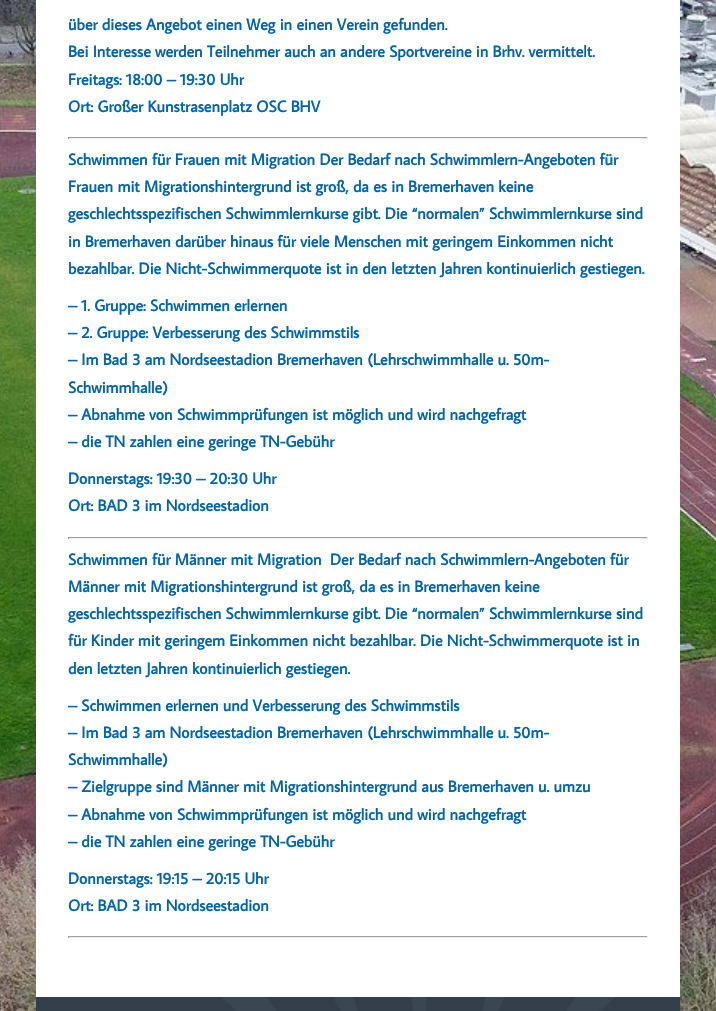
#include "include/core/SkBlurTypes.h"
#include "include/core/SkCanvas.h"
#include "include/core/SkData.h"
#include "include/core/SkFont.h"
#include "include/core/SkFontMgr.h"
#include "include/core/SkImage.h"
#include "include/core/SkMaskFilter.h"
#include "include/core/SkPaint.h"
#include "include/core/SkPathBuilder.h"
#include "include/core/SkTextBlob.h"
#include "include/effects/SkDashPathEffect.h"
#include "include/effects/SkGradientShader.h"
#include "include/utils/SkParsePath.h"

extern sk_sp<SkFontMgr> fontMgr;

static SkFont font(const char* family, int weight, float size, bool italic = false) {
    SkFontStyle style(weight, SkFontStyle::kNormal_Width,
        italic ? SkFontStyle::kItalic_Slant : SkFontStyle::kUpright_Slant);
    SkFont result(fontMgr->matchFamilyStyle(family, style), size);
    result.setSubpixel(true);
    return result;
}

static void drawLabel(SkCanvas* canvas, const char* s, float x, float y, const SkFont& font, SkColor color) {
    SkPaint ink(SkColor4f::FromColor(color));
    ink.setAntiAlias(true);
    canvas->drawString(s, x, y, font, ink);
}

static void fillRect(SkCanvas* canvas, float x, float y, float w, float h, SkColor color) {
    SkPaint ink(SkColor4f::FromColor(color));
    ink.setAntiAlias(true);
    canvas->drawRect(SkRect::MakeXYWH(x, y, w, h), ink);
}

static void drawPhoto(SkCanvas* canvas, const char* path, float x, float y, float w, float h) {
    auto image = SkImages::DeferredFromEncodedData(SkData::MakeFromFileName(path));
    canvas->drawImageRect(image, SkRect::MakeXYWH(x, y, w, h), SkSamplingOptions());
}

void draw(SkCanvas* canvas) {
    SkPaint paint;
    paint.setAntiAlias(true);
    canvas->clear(0xFFFFFFFF);
    drawPhoto(canvas, "assets/img1.png", 0, 0, 716, 1011);
    fillRect(canvas, 36, 0, 644, 997, 0xFFFFFFFF);
    SkFont font1 = font("Average Sans", 700, 16);
    drawLabel(canvas, "über dieses Angebot einen Weg in einen Verein gefunden.", 68, 30, font1, 0xFF0064B0);
    drawLabel(canvas, "Bei Interesse werden Teilnehmer auch an andere Sportvereine in Brhv. vermittelt.", 68, 57, font1, 0xFF0064B0);
    drawLabel(canvas, "Freitags: 18:00 – 19:30 Uhr", 68, 85, font1, 0xFF0064B0);
    drawLabel(canvas, "Ort: Großer Kunstrasenplatz OSC BHV", 68, 112, font1, 0xFF0064B0);
    fillRect(canvas, 68, 137, 580, 1, 0xFF9F9F9F);
    fillRect(canvas, 647, 137, 1, 2, 0xFFEEEEEE);
    fillRect(canvas, 68, 138, 580, 1, 0xFFEEEEEE);
    fillRect(canvas, 68, 137, 1, 2, 0xFF9F9F9F);
    drawLabel(canvas, "Schwimmen für Frauen mit Migration Der Bedarf nach Schwimmlern-Angeboten für", 68, 165, font1, 0xFF0064B0);
    drawLabel(canvas, "Frauen mit Migrationshintergrund ist groß, da es in Bremerhaven keine", 68, 192, font1, 0xFF0064B0);
    drawLabel(canvas, "geschlechtsspezifischen Schwimmlernkurse gibt. Die “normalen” Schwimmlernkurse sind", 68, 219, font1, 0xFF0064B0);
    drawLabel(canvas, "in Bremerhaven darüber hinaus für viele Menschen mit geringem Einkommen nicht", 68, 247, font1, 0xFF0064B0);
    drawLabel(canvas, "bezahlbar. Die Nicht-Schwimmerquote ist in den letzten Jahren kontinuierlich gestiegen.", 68, 274, font1, 0xFF0064B0);
    drawLabel(canvas, "– 1. Gruppe: Schwimmen erlernen", 68, 311, font1, 0xFF0064B0);
    drawLabel(canvas, "– 2. Gruppe: Verbesserung des Schwimmstils", 68, 338, font1, 0xFF0064B0);
    drawLabel(canvas, "– Im Bad 3 am Nordseestadion Bremerhaven (Lehrschwimmhalle u. 50m-", 68, 365, font1, 0xFF0064B0);
    drawLabel(canvas, "Schwimmhalle)", 68, 393, font1, 0xFF0064B0);
    drawLabel(canvas, "– Abnahme von Schwimmprüfungen ist möglich und wird nachgefragt", 68, 420, font1, 0xFF0064B0);
    drawLabel(canvas, "– die TN zahlen eine geringe TN-Gebühr", 68, 447, font1, 0xFF0064B0);
    drawLabel(canvas, "Donnerstags: 19:30 – 20:30 Uhr", 68, 484, font1, 0xFF0064B0);
    drawLabel(canvas, "Ort: BAD 3 im Nordseestadion", 68, 511, font1, 0xFF0064B0);
    fillRect(canvas, 68, 537, 580, 1, 0xFF9F9F9F);
    fillRect(canvas, 647, 537, 1, 2, 0xFFEEEEEE);
    fillRect(canvas, 68, 538, 580, 1, 0xFFEEEEEE);
    fillRect(canvas, 68, 537, 1, 2, 0xFF9F9F9F);
    drawLabel(canvas, "Schwimmen für Männer mit Migration", 68, 565, font1, 0xFF0064B0);
    drawLabel(canvas, "Der Bedarf nach Schwimmlern-Angeboten für", 330, 565, font1, 0xFF0064B0);
    drawLabel(canvas, "Männer mit Migrationshintergrund ist groß, da es in Bremerhaven keine", 68, 592, font1, 0xFF0064B0);
    drawLabel(canvas, "geschlechtsspezifischen Schwimmlernkurse gibt. Die “normalen” Schwimmlernkurse sind", 68, 619, font1, 0xFF0064B0);
    drawLabel(canvas, "für Kinder mit geringem Einkommen nicht bezahlbar. Die Nicht-Schwimmerquote ist in", 68, 646, font1, 0xFF0064B0);
    drawLabel(canvas, "den letzten Jahren kontinuierlich gestiegen.", 68, 674, font1, 0xFF0064B0);
    drawLabel(canvas, "– Schwimmen erlernen und Verbesserung des Schwimmstils", 68, 711, font1, 0xFF0064B0);
    drawLabel(canvas, "– Im Bad 3 am Nordseestadion Bremerhaven (Lehrschwimmhalle u. 50m-", 68, 738, font1, 0xFF0064B0);
    drawLabel(canvas, "Schwimmhalle)", 68, 765, font1, 0xFF0064B0);
    drawLabel(canvas, "– Zielgruppe sind Männer mit Migrationshintergrund aus Bremerhaven u. umzu", 68, 792, font1, 0xFF0064B0);
    drawLabel(canvas, "– Abnahme von Schwimmprüfungen ist möglich und wird nachgefragt", 68, 820, font1, 0xFF0064B0);
    drawLabel(canvas, "– die TN zahlen eine geringe TN-Gebühr", 68, 847, font1, 0xFF0064B0);
    drawLabel(canvas, "Donnerstags: 19:15 – 20:15 Uhr", 68, 884, font1, 0xFF0064B0);
    drawLabel(canvas, "Ort: BAD 3 im Nordseestadion", 68, 911, font1, 0xFF0064B0);
    fillRect(canvas, 68, 936, 580, 1, 0xFF9F9F9F);
    fillRect(canvas, 647, 936, 1, 2, 0xFFEEEEEE);
    fillRect(canvas, 68, 937, 580, 1, 0xFFEEEEEE);
    fillRect(canvas, 68, 936, 1, 2, 0xFF9F9F9F);
    fillRect(canvas, 36, 997, 644, 14, 0xFF303F49);
    drawPhoto(canvas, "assets/img2.png", 222, 997, 393, 14);
}
